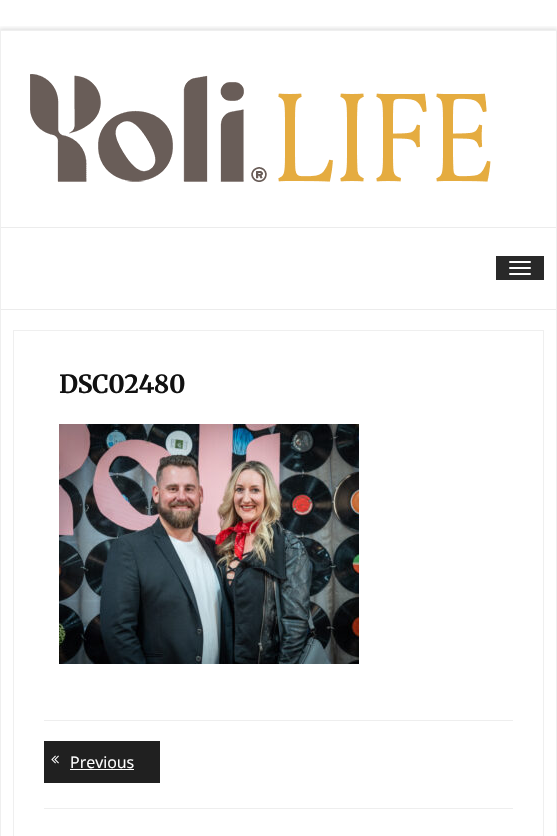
#include "include/core/SkBlurTypes.h"
#include "include/core/SkCanvas.h"
#include "include/core/SkData.h"
#include "include/core/SkFont.h"
#include "include/core/SkFontMgr.h"
#include "include/core/SkImage.h"
#include "include/core/SkMaskFilter.h"
#include "include/core/SkPaint.h"
#include "include/core/SkPathBuilder.h"
#include "include/core/SkTextBlob.h"
#include "include/effects/SkDashPathEffect.h"
#include "include/effects/SkGradientShader.h"
#include "include/utils/SkParsePath.h"

extern sk_sp<SkFontMgr> fontMgr;

static SkFont font(const char* family, int weight, float size, bool italic = false) {
    SkFontStyle style(weight, SkFontStyle::kNormal_Width,
        italic ? SkFontStyle::kItalic_Slant : SkFontStyle::kUpright_Slant);
    SkFont result(fontMgr->matchFamilyStyle(family, style), size);
    result.setSubpixel(true);
    return result;
}

static void drawLabel(SkCanvas* canvas, const char* s, float x, float y, const SkFont& font, SkColor color) {
    SkPaint ink(SkColor4f::FromColor(color));
    ink.setAntiAlias(true);
    canvas->drawString(s, x, y, font, ink);
}

static void drawTracked(SkCanvas* canvas, const char* s, float x, float y, const SkFont& font, const SkPaint& ink, float letter, float word) {
    std::vector<SkGlyphID> glyphs(font.countText(s, strlen(s), SkTextEncoding::kUTF8));
    std::vector<float> xs(glyphs.size());
    font.textToGlyphs(s, strlen(s), SkTextEncoding::kUTF8, glyphs);
    font.getXPos(glyphs, xs, x);
    float extra = 0;
    for (size_t i = 0; i < glyphs.size(); i++) {
        xs[i] += extra;
        extra += letter + word * (glyphs[i] == font.unicharToGlyph(' '));
    }
    canvas->drawTextBlob(SkTextBlob::MakeFromPosHGlyphs(glyphs, xs, y, font), 0, 0, ink);
}

static void fillRect(SkCanvas* canvas, float x, float y, float w, float h, SkColor color) {
    SkPaint ink(SkColor4f::FromColor(color));
    ink.setAntiAlias(true);
    canvas->drawRect(SkRect::MakeXYWH(x, y, w, h), ink);
}

static void fillRRect(SkCanvas* canvas, float x, float y, float w, float h, float radius, SkColor color) {
    SkPaint ink(SkColor4f::FromColor(color));
    ink.setAntiAlias(true);
    canvas->drawRoundRect(SkRect::MakeXYWH(x, y, w, h), radius, radius, ink);
}

static void drawPhoto(SkCanvas* canvas, const char* path, float x, float y, float w, float h) {
    auto image = SkImages::DeferredFromEncodedData(SkData::MakeFromFileName(path));
    canvas->drawImageRect(image, SkRect::MakeXYWH(x, y, w, h), SkSamplingOptions());
}

void draw(SkCanvas* canvas) {
    SkPaint paint;
    paint.setAntiAlias(true);
    canvas->clear(0xFFFFFFFF);
    canvas->save();
    canvas->clipRect(SkRect::MakeXYWH(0, 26, 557, 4));
    paint.setColor(0x26000000);
    paint.setMaskFilter(SkMaskFilter::MakeBlur(kNormal_SkBlurStyle, 2.5f));
    canvas->drawRect(SkRect::MakeXYWH(-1, 29, 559, 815), paint);
    paint.setMaskFilter(nullptr);
    canvas->restore();
    paint.setStroke(true);
    paint.setStrokeWidth(1);
    paint.setColor(0xFFEFEFEF);
    canvas->drawRect(SkRect::MakeXYWH(0.5f, 30.5f, 556, 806), paint);
    drawPhoto(canvas, "assets/img1.png", 30, 74, 461, 108);
    fillRect(canvas, 1, 227, 555, 1, 0xFFECECEC);
    fillRect(canvas, 1, 309, 555, 1, 0xFFECECEC);
    fillRect(canvas, 496, 256, 48, 24, 0xFF292929);
    fillRRect(canvas, 509, 261, 22, 2, 1, 0xFFFFFFFF);
    fillRRect(canvas, 509, 267, 22, 2, 1, 0xFFFFFFFF);
    fillRRect(canvas, 509, 273, 22, 2, 1, 0xFFFFFFFF);
    canvas->drawRect(SkRect::MakeXYWH(13.5f, 330.5f, 530, 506), paint);
    SkFont font1 = font("Merriweather", 700, 25);
    paint.setStroke(false);
    paint.setColor(0xFF111111);
    drawTracked(canvas, "DSC02480", 59, 393, font1, paint, -0.5f, 0);
    drawPhoto(canvas, "assets/img2.png", 59, 424, 300, 240);
    fillRect(canvas, 44, 720, 469, 1, 0xFFEEEEEE);
    fillRect(canvas, 44, 808, 469, 1, 0xFFEEEEEE);
    fillRect(canvas, 44, 741, 116, 42, 0xFF202020);
    drawPhoto(canvas, "assets/img3.png", 51, 755, 8, 9);
    SkFont font2 = font("Open Sans", 400, 16);
    drawLabel(canvas, "Previous", 70, 768, font2, 0xFFFFFFFF);
    fillRect(canvas, 70, 769, 64, 1, 0xFFFFFFFF);
}
